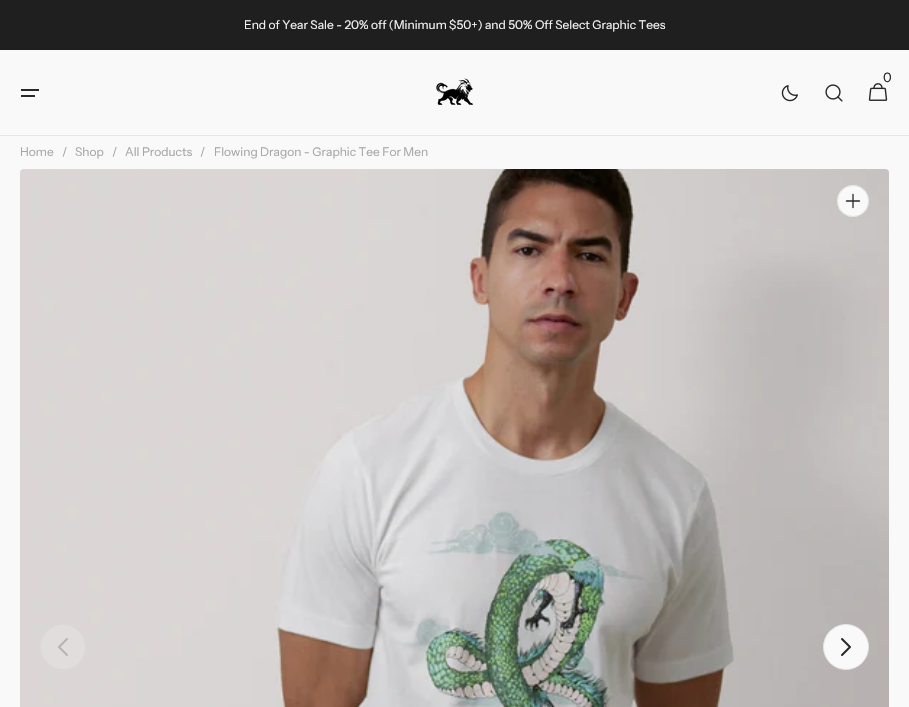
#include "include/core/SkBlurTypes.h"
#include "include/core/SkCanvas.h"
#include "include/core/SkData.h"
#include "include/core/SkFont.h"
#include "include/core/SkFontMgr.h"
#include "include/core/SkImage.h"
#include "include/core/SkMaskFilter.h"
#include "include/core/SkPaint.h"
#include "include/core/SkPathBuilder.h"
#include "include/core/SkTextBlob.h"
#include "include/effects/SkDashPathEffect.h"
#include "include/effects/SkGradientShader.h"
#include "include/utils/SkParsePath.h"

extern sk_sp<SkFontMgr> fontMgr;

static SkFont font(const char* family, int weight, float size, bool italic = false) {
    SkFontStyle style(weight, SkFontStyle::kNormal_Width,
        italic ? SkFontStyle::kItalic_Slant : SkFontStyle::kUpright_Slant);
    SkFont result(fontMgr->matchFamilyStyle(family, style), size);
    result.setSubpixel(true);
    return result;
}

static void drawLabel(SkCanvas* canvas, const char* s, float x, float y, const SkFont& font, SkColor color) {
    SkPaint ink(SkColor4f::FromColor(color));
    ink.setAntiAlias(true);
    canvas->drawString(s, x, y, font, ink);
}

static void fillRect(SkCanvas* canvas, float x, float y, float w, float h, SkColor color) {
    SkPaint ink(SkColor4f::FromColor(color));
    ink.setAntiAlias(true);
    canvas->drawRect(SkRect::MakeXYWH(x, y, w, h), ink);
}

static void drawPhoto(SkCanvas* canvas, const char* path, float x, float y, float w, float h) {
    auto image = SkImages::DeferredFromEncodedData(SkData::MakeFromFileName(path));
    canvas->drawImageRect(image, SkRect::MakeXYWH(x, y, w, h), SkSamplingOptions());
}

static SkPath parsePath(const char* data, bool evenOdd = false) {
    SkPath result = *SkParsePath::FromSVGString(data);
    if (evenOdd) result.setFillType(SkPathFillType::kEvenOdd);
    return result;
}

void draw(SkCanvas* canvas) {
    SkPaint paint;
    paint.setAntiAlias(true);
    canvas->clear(0xFFF9F9F9);
    fillRect(canvas, 0, 0, 909, 50, 0xFF1F1F1F);
    SkFont font1 = font("Instrument Sans", 400, 12);
    drawLabel(canvas, "End of Year Sale - 20% off (Minimum $50+) and 50% Off Select Graphic Tees", 244, 29, font1, 0xFFF9F9F9);
    fillRect(canvas, 21, 89, 18, 2, 0xFF282828);
    fillRect(canvas, 21, 95, 14, 2, 0xFF282828);
    drawPhoto(canvas, "assets/img1.png", 436, 78, 37, 27);
    SkFont font2 = font("Instrument Sans", 400, 13);
    drawLabel(canvas, "0", 883, 82, font2, 0xFF282828);
    drawPhoto(canvas, "assets/img2.png", 868, 83, 20, 18);
    drawPhoto(canvas, "assets/img3.png", 781, 85, 17, 17);
    drawPhoto(canvas, "assets/img4.png", 825, 84, 18, 18);
    fillRect(canvas, 0, 135, 909, 1, 0xFFE5E5E5);
    drawLabel(canvas, "Home", 20, 156, font1, 0xFFA5A5A5);
    drawLabel(canvas, "/", 62, 156, font1, 0xFFA5A5A5);
    drawLabel(canvas, "Shop", 75, 156, font1, 0xFFA5A5A5);
    drawLabel(canvas, "/", 112, 156, font1, 0xFFA5A5A5);
    drawLabel(canvas, "All Products", 125, 156, font1, 0xFFA5A5A5);
    drawLabel(canvas, "/", 200, 156, font1, 0xFFA5A5A5);
    drawLabel(canvas, "Flowing Dragon - Graphic Tee For Men", 214, 156, font1, 0xFFA5A5A5);
    drawPhoto(canvas, "assets/img5.png", 20, 169, 869, 538);
    paint.setColor(0xFFF9F9F9);
    canvas->drawCircle(853, 201, 16, paint);
    paint.setStroke(true);
    paint.setStrokeWidth(1);
    paint.setColor(0x1A282828);
    canvas->drawCircle(853, 201, 15.5f, paint);
    paint.setStrokeWidth(1.3f);
    paint.setStrokeCap(SkPaint::kRound_Cap);
    paint.setColor(0xFF282828);
    canvas->drawPath(parsePath("M853 194.5V207.5M859.5 201H846.5"), paint);
    paint.setStroke(false);
    paint.setColor(0xFFE1DDDC);
    canvas->drawCircle(63, 647, 22.5f, paint);
    paint.setStroke(true);
    paint.setStrokeWidth(1);
    paint.setStrokeCap(SkPaint::kButt_Cap);
    paint.setColor(0xFFDDD9D8);
    canvas->drawCircle(63, 647, 22.5f, paint);
    paint.setStrokeWidth(2);
    paint.setStrokeCap(SkPaint::kRound_Cap);
    paint.setStrokeJoin(SkPaint::kRound_Join);
    paint.setColor(0xFFB7B3B2);
    canvas->drawPath(parsePath("M67 655L59 647L67 639"), paint);
    paint.setStroke(false);
    paint.setColor(0xFFF9F9F9);
    canvas->drawCircle(846, 647, 22.5f, paint);
    paint.setStroke(true);
    paint.setStrokeWidth(1);
    paint.setStrokeCap(SkPaint::kButt_Cap);
    paint.setStrokeJoin(SkPaint::kMiter_Join);
    paint.setColor(0xFFE5E5E5);
    canvas->drawCircle(846, 647, 22.5f, paint);
    paint.setStrokeWidth(2);
    paint.setStrokeCap(SkPaint::kRound_Cap);
    paint.setStrokeJoin(SkPaint::kRound_Join);
    paint.setColor(0xFF282828);
    canvas->drawPath(parsePath("M842 639L850 647L842 655"), paint);
}
